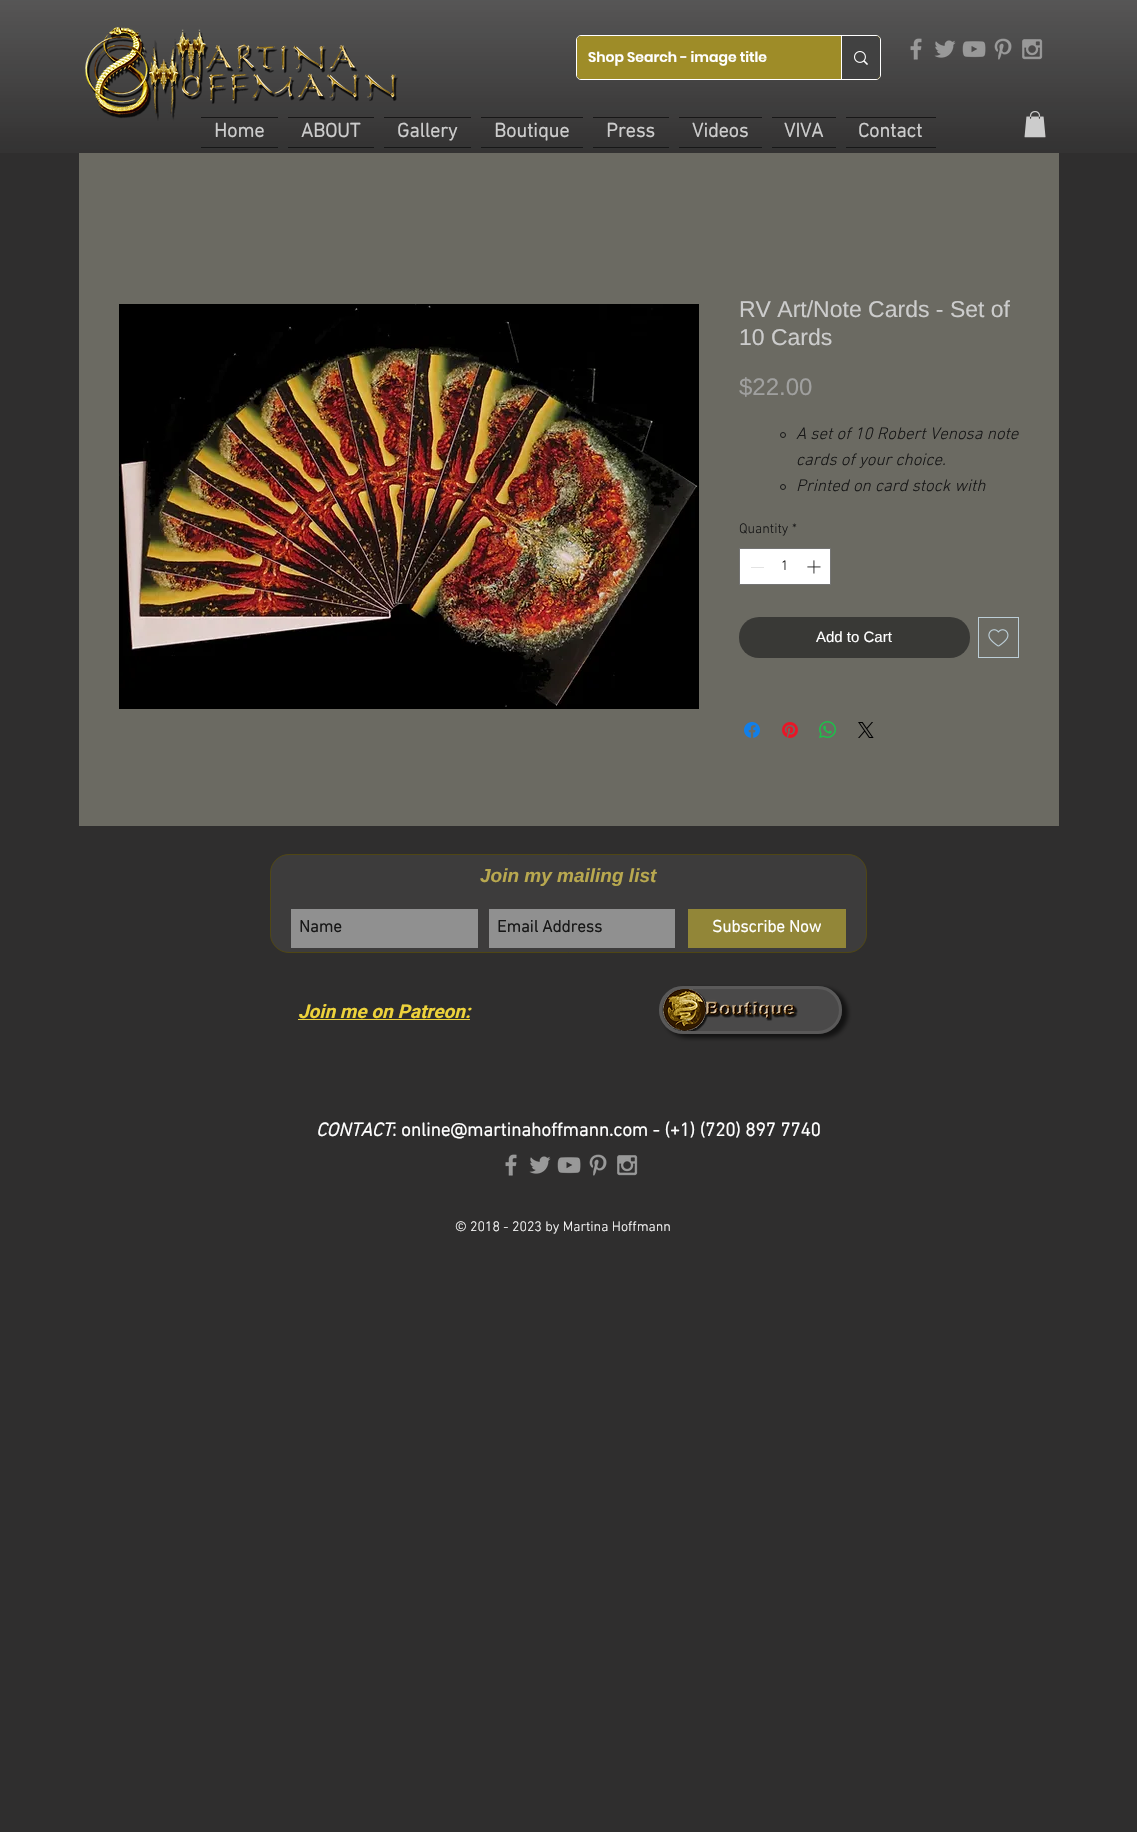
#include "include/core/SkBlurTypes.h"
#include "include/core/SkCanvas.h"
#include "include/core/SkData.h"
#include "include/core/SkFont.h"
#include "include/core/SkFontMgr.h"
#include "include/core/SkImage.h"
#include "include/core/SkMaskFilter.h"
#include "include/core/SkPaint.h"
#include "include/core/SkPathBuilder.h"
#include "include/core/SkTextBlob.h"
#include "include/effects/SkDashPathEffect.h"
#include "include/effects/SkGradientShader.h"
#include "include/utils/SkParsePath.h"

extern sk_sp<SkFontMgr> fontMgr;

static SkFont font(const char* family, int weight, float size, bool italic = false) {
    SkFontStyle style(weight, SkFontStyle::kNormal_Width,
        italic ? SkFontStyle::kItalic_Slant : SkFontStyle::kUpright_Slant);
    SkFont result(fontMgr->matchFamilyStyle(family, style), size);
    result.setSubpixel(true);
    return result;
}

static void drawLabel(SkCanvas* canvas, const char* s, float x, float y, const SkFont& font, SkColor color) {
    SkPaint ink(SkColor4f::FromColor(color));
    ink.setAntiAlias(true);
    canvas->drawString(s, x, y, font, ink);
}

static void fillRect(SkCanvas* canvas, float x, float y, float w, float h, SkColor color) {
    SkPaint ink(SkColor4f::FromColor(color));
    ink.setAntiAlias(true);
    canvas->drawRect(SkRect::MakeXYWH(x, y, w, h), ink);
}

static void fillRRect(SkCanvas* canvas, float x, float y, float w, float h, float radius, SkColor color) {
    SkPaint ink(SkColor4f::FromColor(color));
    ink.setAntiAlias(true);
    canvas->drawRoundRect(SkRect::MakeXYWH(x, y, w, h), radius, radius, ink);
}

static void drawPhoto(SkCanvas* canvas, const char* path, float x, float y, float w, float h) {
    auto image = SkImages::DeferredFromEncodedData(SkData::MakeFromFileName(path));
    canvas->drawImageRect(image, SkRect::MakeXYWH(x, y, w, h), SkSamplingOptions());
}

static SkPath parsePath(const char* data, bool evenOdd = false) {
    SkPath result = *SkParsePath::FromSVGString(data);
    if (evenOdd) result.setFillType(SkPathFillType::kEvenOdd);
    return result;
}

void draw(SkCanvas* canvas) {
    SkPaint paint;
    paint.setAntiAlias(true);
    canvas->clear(0xFF2F2E2E);
    fillRect(canvas, 0, 0, 1137, 153, 0xFF1B1A1A);
    drawPhoto(canvas, "assets/img1.png", 0, 0, 1137, 153);
    drawPhoto(canvas, "assets/img2.png", 85, 27, 313, 94);
    paint.setStroke(true);
    paint.setStrokeWidth(1);
    paint.setColor(0xFFFFFFFF);
    canvas->drawRoundRect(SkRect::MakeXYWH(576.5f, 35.5f, 304, 44), 4.5f, 4.5f, paint);
    fillRRect(canvas, 577, 36, 303, 43, 4, 0xFF9E8C28);
    SkFont font1 = font("Poppins", 600, 14);
    drawLabel(canvas, "Shop Search - image title", 588, 62, font1, 0xFFFFFFFF);
    paint.setStroke(false);
    paint.setColor(0xFF414141);
    canvas->drawPath(parsePath("M841 36H876C878 36 880 38 880 40V75C880 77 878 79 876 79H841Z"), paint);
    fillRect(canvas, 841, 36, 1, 43, 0xFFFFFFFF);
    drawPhoto(canvas, "assets/img3.png", 854, 51, 14, 14);
    drawPhoto(canvas, "assets/img4.png", 910, 38, 12, 22);
    drawPhoto(canvas, "assets/img5.png", 934, 40, 22, 18);
    drawPhoto(canvas, "assets/img6.png", 962, 41, 24, 17);
    drawPhoto(canvas, "assets/img7.png", 994, 38, 18, 22);
    drawPhoto(canvas, "assets/img8.png", 1022, 39, 21, 21);
    fillRect(canvas, 201, 117, 77, 1, 0xFF171717);
    fillRect(canvas, 201, 147, 77, 1, 0xFF171717);
    SkFont font2 = font("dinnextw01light", 700, 20);
    drawLabel(canvas, "Home", 214, 137, font2, 0xFFCCCCCC);
    fillRect(canvas, 288, 117, 86, 1, 0xFF171717);
    fillRect(canvas, 288, 147, 86, 1, 0xFF171717);
    drawLabel(canvas, "ABOUT", 301, 137, font2, 0xFFCCCCCC);
    fillRect(canvas, 384, 117, 87, 1, 0xFF171717);
    fillRect(canvas, 384, 147, 87, 1, 0xFF171717);
    drawLabel(canvas, "Gallery", 397, 137, font2, 0xFFCCCCCC);
    fillRect(canvas, 481, 117, 102, 1, 0xFF171717);
    fillRect(canvas, 481, 147, 102, 1, 0xFF171717);
    drawLabel(canvas, "Boutique", 494, 137, font2, 0xFFCCCCCC);
    fillRect(canvas, 593, 117, 76, 1, 0xFF171717);
    fillRect(canvas, 593, 147, 76, 1, 0xFF171717);
    drawLabel(canvas, "Press", 606, 137, font2, 0xFFCCCCCC);
    fillRect(canvas, 679, 117, 83, 1, 0xFF171717);
    fillRect(canvas, 679, 147, 83, 1, 0xFF171717);
    drawLabel(canvas, "Videos", 692, 137, font2, 0xFFCCCCCC);
    fillRect(canvas, 772, 117, 64, 1, 0xFF171717);
    fillRect(canvas, 772, 147, 64, 1, 0xFF171717);
    drawLabel(canvas, "VIVA", 784, 137, font2, 0xFFCCCCCC);
    fillRect(canvas, 846, 117, 90, 1, 0xFF171717);
    fillRect(canvas, 846, 147, 90, 1, 0xFF171717);
    drawLabel(canvas, "Contact", 858, 137, font2, 0xFFCCCCCC);
    drawPhoto(canvas, "assets/img9.png", 1024, 111, 22, 27);
    fillRect(canvas, 79, 153, 980, 673, 0xFF6B6A62);
    drawPhoto(canvas, "assets/img10.png", 119, 304, 580, 405);
    SkFont font3 = font("Liberation Sans", 400, 23);
    drawLabel(canvas, "RV Art/Note Cards - Set of", 739, 317, font3, 0xFFCCCCCC);
    drawLabel(canvas, "10 Cards", 739, 345, font3, 0xFFCCCCCC);
    SkFont font4 = font("Liberation Sans", 400, 24);
    drawLabel(canvas, "$22.00", 739, 395, font4, 0xFFA0A09F);
    paint.setStroke(true);
    paint.setColor(0xFF171717);
    canvas->drawCircle(783, 435, 2.5f, paint);
    SkFont font5 = font("dinnextw01light", 300, 17, true);
    drawLabel(canvas, "A set of 10 Robert Venosa note", 796, 439, font5, 0xFF171717);
    drawLabel(canvas, "cards of your choice.", 796, 465, font5, 0xFF171717);
    canvas->drawCircle(783, 487, 2.5f, paint);
    drawLabel(canvas, "Printed on card stock with", 796, 491, font5, 0xFF171717);
    SkFont font6 = font("dinnextw01light", 300, 14);
    drawLabel(canvas, "Quantity", 739, 533, font6, 0xFF171717);
    drawLabel(canvas, "*", 792, 533, font6, 0xFF171717);
    paint.setStroke(false);
    paint.setColor(0xFFFFFFFF);
    canvas->drawRect(SkRect::MakeXYWH(739.5f, 548.5f, 91, 36), paint);
    paint.setStroke(true);
    paint.setColor(0xFF747474);
    canvas->drawRect(SkRect::MakeXYWH(739.5f, 548.5f, 91, 36), paint);
    fillRect(canvas, 751, 567, 13, 1, 0xFFE3E3E3);
    drawLabel(canvas, "1", 781, 570, font6, 0xFF171717);
    drawPhoto(canvas, "assets/img11.png", 807, 560, 14, 14);
    fillRRect(canvas, 739, 617, 231, 41, 20, 0xFF393936);
    SkFont font7 = font("Liberation Sans", 400, 15);
    drawLabel(canvas, "Add to Cart", 816, 642, font7, 0xFFFFFFFF);
    paint.setColor(0xFFBCCED7);
    canvas->drawRect(SkRect::MakeXYWH(978.5f, 617.5f, 40, 40), paint);
    drawPhoto(canvas, "assets/img12.png", 988, 629, 21, 18);
    drawPhoto(canvas, "assets/img13.png", 744, 722, 16, 16);
    drawPhoto(canvas, "assets/img14.png", 782, 722, 16, 16);
    drawPhoto(canvas, "assets/img15.png", 819, 721, 17, 17);
    drawPhoto(canvas, "assets/img16.png", 858, 722, 16, 16);
    paint.setStroke(false);
    paint.setColor(0xFF3D3C3C);
    canvas->drawRoundRect(SkRect::MakeXYWH(270.5f, 854.5f, 596, 98), 18.5f, 18.5f, paint);
    paint.setStroke(true);
    paint.setColor(0xFF4F4614);
    canvas->drawRoundRect(SkRect::MakeXYWH(270.5f, 854.5f, 596, 98), 18.5f, 18.5f, paint);
    SkFont font8 = font("Liberation Sans", 700, 19, true);
    drawLabel(canvas, "Join my mailing list", 480, 882, font8, 0xFFB8A84F);
    fillRect(canvas, 291, 909, 187, 39, 0xFF909090);
    SkFont font9 = font("dinnextw01light", 700, 17);
    drawLabel(canvas, "Name", 299, 932, font9, 0xFF171717);
    fillRect(canvas, 489, 909, 186, 39, 0xFF909090);
    drawLabel(canvas, "Email Address", 497, 932, font9, 0xFF171717);
    fillRect(canvas, 688, 909, 158, 39, 0xFF928638);
    drawLabel(canvas, "Subscribe Now", 712, 932, font9, 0xFFFFFFFF);
    SkFont font10 = font("Heebo", 700, 19, true);
    drawLabel(canvas, "Join me on Patreon:", 298, 1018, font10, 0xFFEDD23B);
    fillRect(canvas, 298, 1019, 172, 1, 0xFFEDD23B);
    canvas->save();
    canvas->clipPath(parsePath("M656 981H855V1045H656ZM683 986H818C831.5 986 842 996.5 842 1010C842 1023.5 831.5 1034 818 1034H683C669.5 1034 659 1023.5 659 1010C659 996.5 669.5 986 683 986Z", true), true);
    paint.setStroke(false);
    paint.setColor(0x99000000);
    paint.setMaskFilter(SkMaskFilter::MakeBlur(kNormal_SkBlurStyle, 2));
    canvas->drawRoundRect(SkRect::MakeXYWH(663, 988, 185, 50), 25, 25, paint);
    paint.setMaskFilter(nullptr);
    canvas->restore();
    fillRRect(canvas, 659, 986, 183, 48, 24, 0x69707070);
    paint.setStroke(true);
    paint.setStrokeWidth(3);
    paint.setColor(0x69707070);
    canvas->drawRoundRect(SkRect::MakeXYWH(660.5f, 987.5f, 180, 45), 22.5f, 22.5f, paint);
    drawPhoto(canvas, "assets/img17.png", 663, 989, 135, 42);
    SkFont font11 = font("dinnextw01light", 700, 19, true);
    drawLabel(canvas, "CONTACT", 316, 1136, font11, 0xFFFFFFFF);
    SkFont font12 = font("dinnextw01light", 700, 19);
    drawLabel(canvas, ": online@martinahoffmann.com - (+1) (720) 897 7740", 392, 1136, font12, 0xFFFFFFFF);
    drawLabel(canvas, "© 2018 - 2023 by Martina Hoffmann", 455, 1231, font6, 0xFFFFFFFF);
    drawPhoto(canvas, "assets/img18.png", 505, 1154, 12, 22);
    drawPhoto(canvas, "assets/img19.png", 529, 1156, 22, 18);
    drawPhoto(canvas, "assets/img20.png", 557, 1157, 24, 17);
    drawPhoto(canvas, "assets/img21.png", 589, 1154, 18, 22);
    drawPhoto(canvas, "assets/img22.png", 617, 1155, 21, 21);
}
